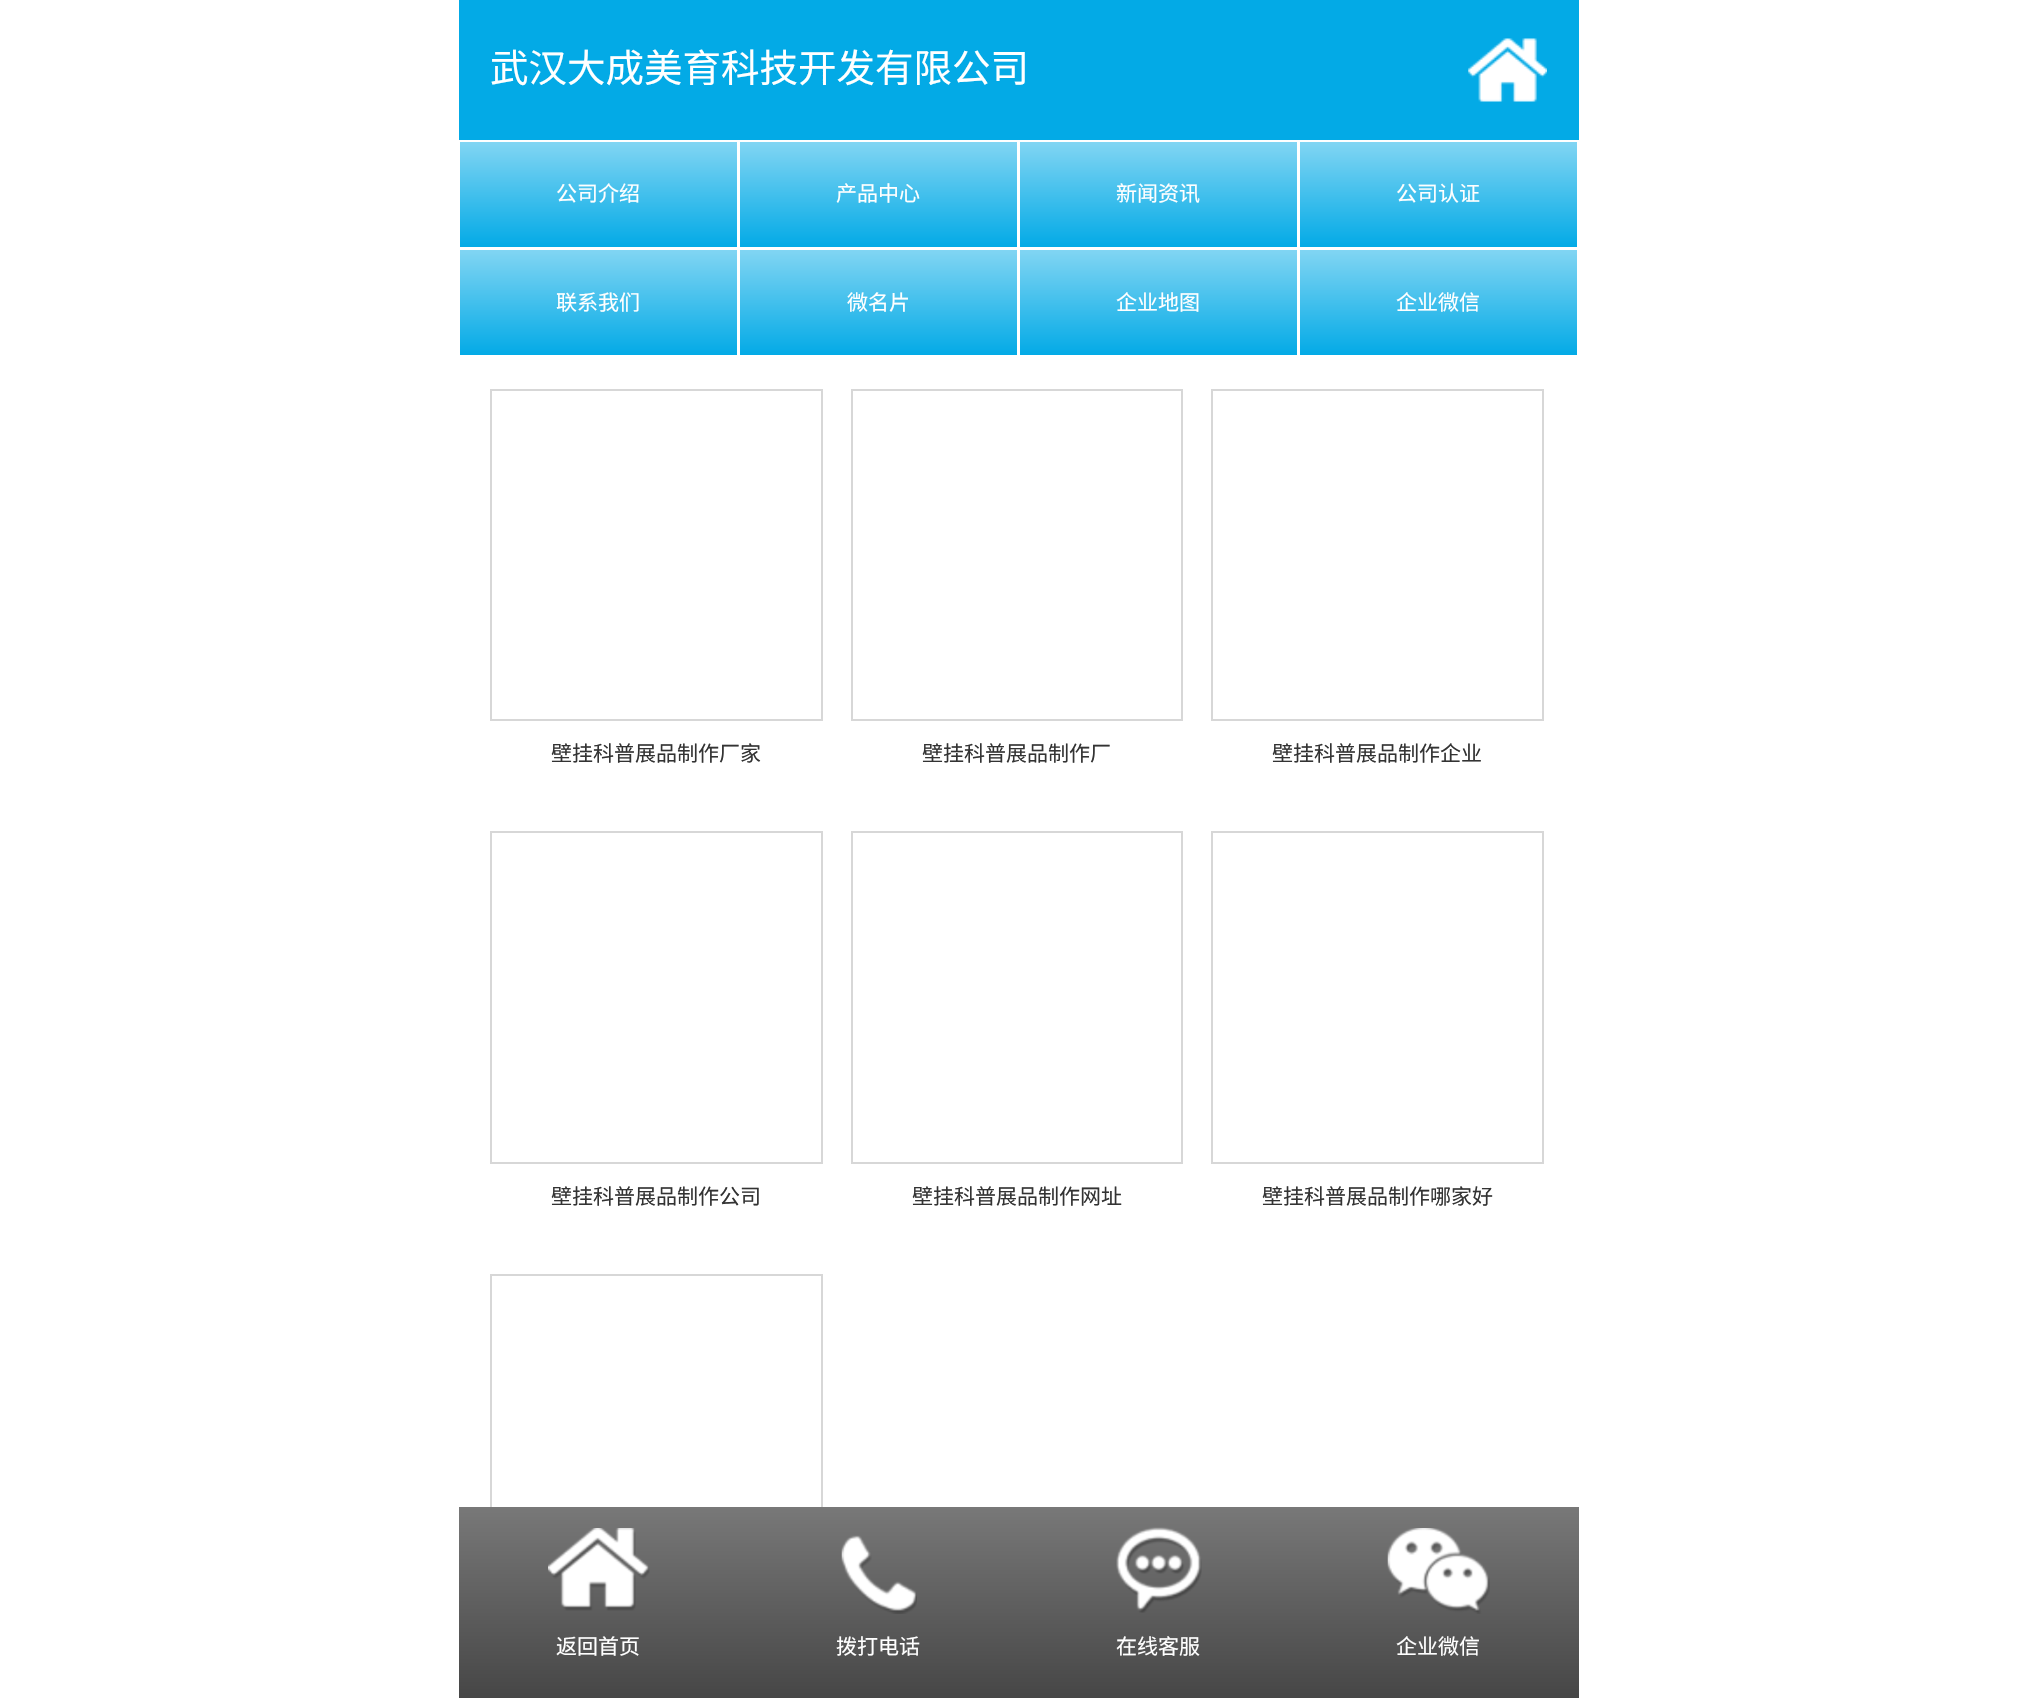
#include "include/core/SkBlurTypes.h"
#include "include/core/SkCanvas.h"
#include "include/core/SkData.h"
#include "include/core/SkFont.h"
#include "include/core/SkFontMgr.h"
#include "include/core/SkImage.h"
#include "include/core/SkMaskFilter.h"
#include "include/core/SkPaint.h"
#include "include/core/SkPathBuilder.h"
#include "include/core/SkTextBlob.h"
#include "include/effects/SkDashPathEffect.h"
#include "include/effects/SkGradientShader.h"
#include "include/utils/SkParsePath.h"

extern sk_sp<SkFontMgr> fontMgr;

static SkFont font(const char* family, int weight, float size, bool italic = false) {
    SkFontStyle style(weight, SkFontStyle::kNormal_Width,
        italic ? SkFontStyle::kItalic_Slant : SkFontStyle::kUpright_Slant);
    SkFont result(fontMgr->matchFamilyStyle(family, style), size);
    result.setSubpixel(true);
    return result;
}

static void drawLabel(SkCanvas* canvas, const char* s, float x, float y, const SkFont& font, SkColor color) {
    SkPaint ink(SkColor4f::FromColor(color));
    ink.setAntiAlias(true);
    canvas->drawString(s, x, y, font, ink);
}

static void fillRect(SkCanvas* canvas, float x, float y, float w, float h, SkColor color) {
    SkPaint ink(SkColor4f::FromColor(color));
    ink.setAntiAlias(true);
    canvas->drawRect(SkRect::MakeXYWH(x, y, w, h), ink);
}

static void drawPhoto(SkCanvas* canvas, const char* path, float x, float y, float w, float h) {
    auto image = SkImages::DeferredFromEncodedData(SkData::MakeFromFileName(path));
    canvas->drawImageRect(image, SkRect::MakeXYWH(x, y, w, h), SkSamplingOptions());
}

void draw(SkCanvas* canvas) {
    SkPaint paint;
    paint.setAntiAlias(true);
    canvas->clear(0xFFFFFFFF);
    fillRect(canvas, 459, 0, 1120, 140, 0xFF03AAE6);
    SkFont font1 = font("Noto Sans CJK SC", 400, 38.5f);
    drawLabel(canvas, "武汉大成美育科技开发有限公司", 490, 82, font1, 0xFFFFFFFF);
    drawPhoto(canvas, "assets/img1.png", 1468, 38, 79, 64);
    {
        const SkColor colors[] = {0xFF81D5F3, 0xFF03AAE6};
        const float stops[] = {0, 1};
        const SkPoint ends[] = {{599, 142}, {599, 247}};
        paint.setShader(SkGradientShader::MakeLinear(ends, colors, stops, 2, SkTileMode::kClamp));
        paint.setAlpha(255);
    }
    canvas->drawRect(SkRect::MakeXYWH(460, 142, 277, 105), paint);
    SkFont font2 = font("Noto Sans CJK SC", 400, 21);
    drawLabel(canvas, "公司介绍", 556, 201, font2, 0xFFFFFFFF);
    {
        const SkColor colors[] = {0xFF81D5F3, 0xFF03AAE6};
        const float stops[] = {0, 1};
        const SkPoint ends[] = {{879, 142}, {879, 247}};
        paint.setShader(SkGradientShader::MakeLinear(ends, colors, stops, 2, SkTileMode::kClamp));
        paint.setAlpha(255);
    }
    canvas->drawRect(SkRect::MakeXYWH(740, 142, 277, 105), paint);
    drawLabel(canvas, "产品中心", 836, 201, font2, 0xFFFFFFFF);
    {
        const SkColor colors[] = {0xFF81D5F3, 0xFF03AAE6};
        const float stops[] = {0, 1};
        const SkPoint ends[] = {{1159, 142}, {1159, 247}};
        paint.setShader(SkGradientShader::MakeLinear(ends, colors, stops, 2, SkTileMode::kClamp));
        paint.setAlpha(255);
    }
    canvas->drawRect(SkRect::MakeXYWH(1020, 142, 277, 105), paint);
    drawLabel(canvas, "新闻资讯", 1116, 201, font2, 0xFFFFFFFF);
    {
        const SkColor colors[] = {0xFF81D5F3, 0xFF03AAE6};
        const float stops[] = {0, 1};
        const SkPoint ends[] = {{1439, 142}, {1439, 247}};
        paint.setShader(SkGradientShader::MakeLinear(ends, colors, stops, 2, SkTileMode::kClamp));
        paint.setAlpha(255);
    }
    canvas->drawRect(SkRect::MakeXYWH(1300, 142, 277, 105), paint);
    drawLabel(canvas, "公司认证", 1396, 201, font2, 0xFFFFFFFF);
    {
        const SkColor colors[] = {0xFF81D5F3, 0xFF03AAE6};
        const float stops[] = {0, 1};
        const SkPoint ends[] = {{599, 250}, {599, 355}};
        paint.setShader(SkGradientShader::MakeLinear(ends, colors, stops, 2, SkTileMode::kClamp));
        paint.setAlpha(255);
    }
    canvas->drawRect(SkRect::MakeXYWH(460, 250, 277, 105), paint);
    drawLabel(canvas, "联系我们", 556, 310, font2, 0xFFFFFFFF);
    {
        const SkColor colors[] = {0xFF81D5F3, 0xFF03AAE6};
        const float stops[] = {0, 1};
        const SkPoint ends[] = {{879, 250}, {879, 355}};
        paint.setShader(SkGradientShader::MakeLinear(ends, colors, stops, 2, SkTileMode::kClamp));
        paint.setAlpha(255);
    }
    canvas->drawRect(SkRect::MakeXYWH(740, 250, 277, 105), paint);
    drawLabel(canvas, "微名片", 847, 310, font2, 0xFFFFFFFF);
    {
        const SkColor colors[] = {0xFF81D5F3, 0xFF03AAE6};
        const float stops[] = {0, 1};
        const SkPoint ends[] = {{1159, 250}, {1159, 355}};
        paint.setShader(SkGradientShader::MakeLinear(ends, colors, stops, 2, SkTileMode::kClamp));
        paint.setAlpha(255);
    }
    canvas->drawRect(SkRect::MakeXYWH(1020, 250, 277, 105), paint);
    drawLabel(canvas, "企业地图", 1116, 310, font2, 0xFFFFFFFF);
    {
        const SkColor colors[] = {0xFF81D5F3, 0xFF03AAE6};
        const float stops[] = {0, 1};
        const SkPoint ends[] = {{1439, 250}, {1439, 355}};
        paint.setShader(SkGradientShader::MakeLinear(ends, colors, stops, 2, SkTileMode::kClamp));
        paint.setAlpha(255);
    }
    canvas->drawRect(SkRect::MakeXYWH(1300, 250, 277, 105), paint);
    drawLabel(canvas, "企业微信", 1396, 310, font2, 0xFFFFFFFF);
    paint.setStroke(true);
    paint.setStrokeWidth(2);
    paint.setShader(nullptr);
    paint.setColor(0xFFD7D7D7);
    canvas->drawRect(SkRect::MakeXYWH(491, 390, 331, 330), paint);
    drawLabel(canvas, "壁挂科普展品制作厂家", 551, 761, font2, 0xFF333333);
    canvas->drawRect(SkRect::MakeXYWH(852, 390, 330, 330), paint);
    drawLabel(canvas, "壁挂科普展品制作厂", 922, 761, font2, 0xFF333333);
    canvas->drawRect(SkRect::MakeXYWH(1212, 390, 331, 330), paint);
    drawLabel(canvas, "壁挂科普展品制作企业", 1272, 761, font2, 0xFF333333);
    canvas->drawRect(SkRect::MakeXYWH(491, 832, 331, 331), paint);
    drawLabel(canvas, "壁挂科普展品制作公司", 551, 1204, font2, 0xFF333333);
    canvas->drawRect(SkRect::MakeXYWH(852, 832, 330, 331), paint);
    drawLabel(canvas, "壁挂科普展品制作网址", 912, 1204, font2, 0xFF333333);
    canvas->drawRect(SkRect::MakeXYWH(1212, 832, 331, 331), paint);
    drawLabel(canvas, "壁挂科普展品制作哪家好", 1262, 1204, font2, 0xFF333333);
    canvas->drawRect(SkRect::MakeXYWH(491, 1275, 331, 331), paint);
    paint.setStroke(false);
    {
        const SkColor colors[] = {0xFF787878, 0xFF464646};
        const float stops[] = {0, 1};
        const SkPoint ends[] = {{1019, 1507}, {1019, 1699}};
        paint.setShader(SkGradientShader::MakeLinear(ends, colors, stops, 2, SkTileMode::kClamp));
        paint.setAlpha(255);
    }
    canvas->drawRect(SkRect::MakeXYWH(459, 1507, 1120, 191), paint);
    drawPhoto(canvas, "assets/img2.png", 548, 1528, 102, 83);
    drawLabel(canvas, "返回首页", 556, 1654, font2, 0xFFFFFFFF);
    drawPhoto(canvas, "assets/img3.png", 841, 1535, 76, 79);
    drawLabel(canvas, "拨打电话", 836, 1654, font2, 0xFFFFFFFF);
    drawPhoto(canvas, "assets/img4.png", 1116, 1527, 86, 86);
    drawLabel(canvas, "在线客服", 1116, 1654, font2, 0xFFFFFFFF);
    drawPhoto(canvas, "assets/img5.png", 1387, 1528, 103, 86);
    drawLabel(canvas, "企业微信", 1396, 1654, font2, 0xFFFFFFFF);
}
